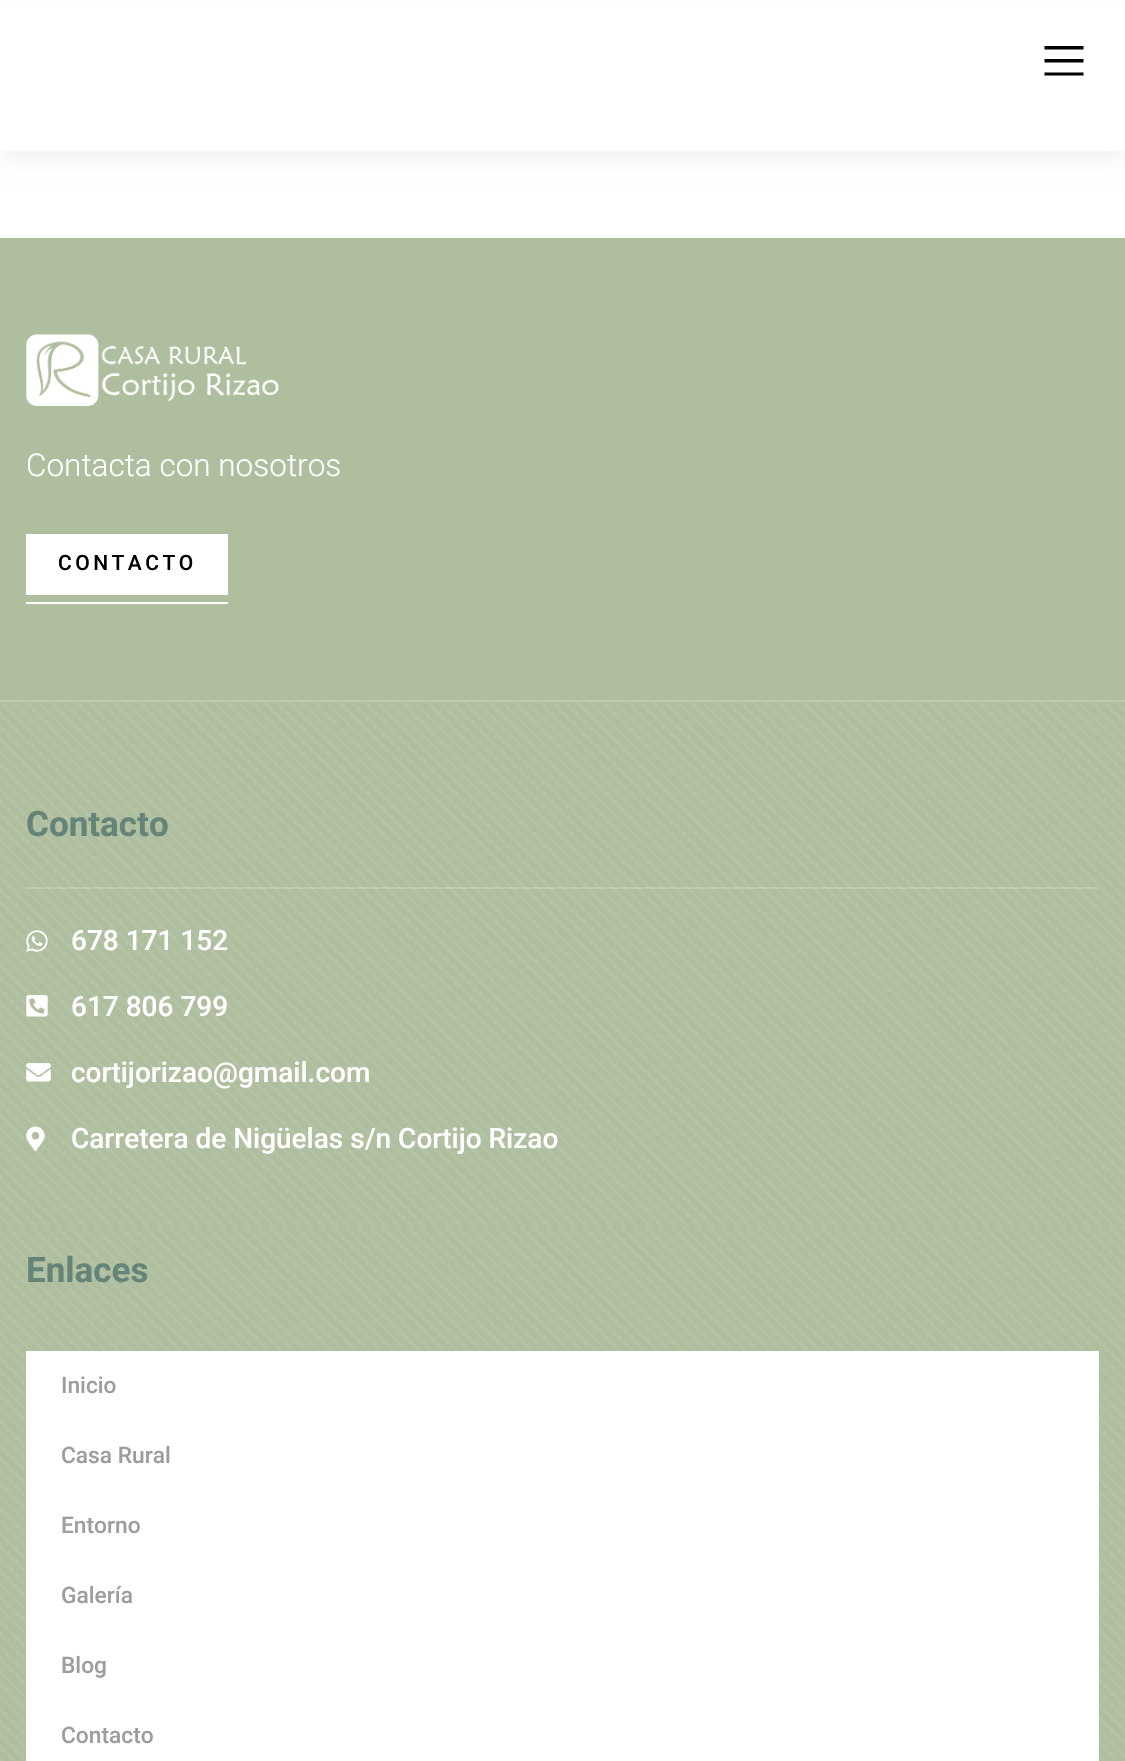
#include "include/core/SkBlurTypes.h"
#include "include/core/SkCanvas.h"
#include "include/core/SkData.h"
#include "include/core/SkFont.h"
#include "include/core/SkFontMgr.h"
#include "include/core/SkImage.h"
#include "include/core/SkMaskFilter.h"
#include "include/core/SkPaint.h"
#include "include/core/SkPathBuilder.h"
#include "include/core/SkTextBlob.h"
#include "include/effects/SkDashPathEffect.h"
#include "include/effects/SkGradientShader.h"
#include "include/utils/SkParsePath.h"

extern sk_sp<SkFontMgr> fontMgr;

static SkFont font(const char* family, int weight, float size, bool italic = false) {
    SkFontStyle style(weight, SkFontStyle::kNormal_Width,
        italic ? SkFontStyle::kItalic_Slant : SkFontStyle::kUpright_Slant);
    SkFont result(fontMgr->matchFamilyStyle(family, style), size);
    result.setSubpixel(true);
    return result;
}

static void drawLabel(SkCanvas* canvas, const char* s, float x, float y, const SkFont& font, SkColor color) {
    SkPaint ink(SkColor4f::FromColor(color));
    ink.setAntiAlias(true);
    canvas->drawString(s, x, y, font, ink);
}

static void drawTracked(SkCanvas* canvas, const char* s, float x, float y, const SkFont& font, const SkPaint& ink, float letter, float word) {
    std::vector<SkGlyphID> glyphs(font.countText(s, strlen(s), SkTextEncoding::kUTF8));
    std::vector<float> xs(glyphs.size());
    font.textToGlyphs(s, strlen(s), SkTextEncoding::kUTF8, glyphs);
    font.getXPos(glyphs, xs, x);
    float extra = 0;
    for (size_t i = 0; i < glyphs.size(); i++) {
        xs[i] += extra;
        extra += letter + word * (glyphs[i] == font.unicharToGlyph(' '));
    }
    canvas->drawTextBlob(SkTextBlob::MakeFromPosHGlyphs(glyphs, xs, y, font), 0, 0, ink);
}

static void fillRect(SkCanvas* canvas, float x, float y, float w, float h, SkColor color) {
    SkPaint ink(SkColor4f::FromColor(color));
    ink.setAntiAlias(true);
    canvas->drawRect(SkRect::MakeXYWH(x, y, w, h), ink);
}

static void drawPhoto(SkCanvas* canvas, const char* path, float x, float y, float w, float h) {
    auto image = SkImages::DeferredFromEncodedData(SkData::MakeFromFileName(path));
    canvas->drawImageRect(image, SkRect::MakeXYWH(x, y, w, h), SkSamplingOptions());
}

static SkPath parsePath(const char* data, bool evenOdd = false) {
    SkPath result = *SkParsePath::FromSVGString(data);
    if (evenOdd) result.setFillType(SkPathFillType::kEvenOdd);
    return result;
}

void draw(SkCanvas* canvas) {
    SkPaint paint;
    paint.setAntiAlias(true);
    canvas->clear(0xFFFFFFFF);
    paint.setColor(0x0D000000);
    paint.setMaskFilter(SkMaskFilter::MakeBlur(kNormal_SkBlurStyle, 9));
    canvas->drawRect(SkRect::MakeXYWH(0, 9, 1125, 150), paint);
    paint.setMaskFilter(nullptr);
    fillRect(canvas, 0, 1, 1125, 150, 0xFFFFFFFF);
    paint.setColor(0xFF000000);
    canvas->drawPath(parsePath("M1044.5 46V49.5H1083.5V46ZM1044.5 59V62.5H1083.5V59ZM1044.5 72.5V75.5H1083.5V72.5Z"), paint);
    fillRect(canvas, 0, 238, 1125, 462, 0xFFAFBE9E);
    fillRect(canvas, 0, 700, 1125, 2, 0xFFBFCBB1);
    drawPhoto(canvas, "assets/img1.png", 26, 334, 253, 72);
    SkFont font1 = font("Roboto", 300, 31.5f);
    drawLabel(canvas, "Contacta con nosotros", 26, 476, font1, 0xFFFFFFFF);
    fillRect(canvas, 26, 534, 202, 61, 0xFFFFFFFF);
    SkFont font2 = font("Roboto", 500, 21);
    drawTracked(canvas, "CONTACTO", 58, 570, font2, paint, 3.5f, 0);
    fillRect(canvas, 26, 602, 202, 2, 0xFFFFFFFF);
    fillRect(canvas, 0, 702, 1125, 1059, 0xFFAFBE9E);
    drawPhoto(canvas, "assets/img2.png", 0, 702, 1125, 1059);
    SkFont font3 = font("Roboto", 700, 35);
    drawLabel(canvas, "Contacto", 26, 836, font3, 0xFF648478);
    fillRect(canvas, 26, 887, 1073, 2, 0x33FFFFFF);
    drawPhoto(canvas, "assets/img3.png", 26, 930, 22, 22);
    SkFont font4 = font("Roboto", 500, 28);
    drawLabel(canvas, "678 171 152", 71, 950, font4, 0xFFFFFFFF);
    drawPhoto(canvas, "assets/img4.png", 26, 995, 22, 22);
    drawLabel(canvas, "617 806 799", 71, 1016, font4, 0xFFFFFFFF);
    drawPhoto(canvas, "assets/img5.png", 26, 1063, 25, 19);
    drawLabel(canvas, "cortijorizao@gmail.com", 71, 1082, font4, 0xFFFFFFFF);
    drawPhoto(canvas, "assets/img6.png", 26, 1126, 19, 25);
    drawLabel(canvas, "Carretera de Nigüelas s/n Cortijo Rizao", 71, 1148, font4, 0xFFFFFFFF);
    drawLabel(canvas, "Enlaces", 26, 1282, font3, 0xFF648478);
    fillRect(canvas, 26, 1351, 1073, 410, 0xFFFFFFFF);
    SkFont font5 = font("Roboto", 500, 22.75f);
    drawLabel(canvas, "Inicio", 61, 1393, font5, 0xFF9D9D9D);
    drawLabel(canvas, "Casa Rural", 61, 1463, font5, 0xFF9D9D9D);
    drawLabel(canvas, "Entorno", 61, 1533, font5, 0xFF9D9D9D);
    drawLabel(canvas, "Galería", 61, 1603, font5, 0xFF9D9D9D);
    drawLabel(canvas, "Blog", 61, 1673, font5, 0xFF9D9D9D);
    drawLabel(canvas, "Contacto", 61, 1743, font5, 0xFF9D9D9D);
}
